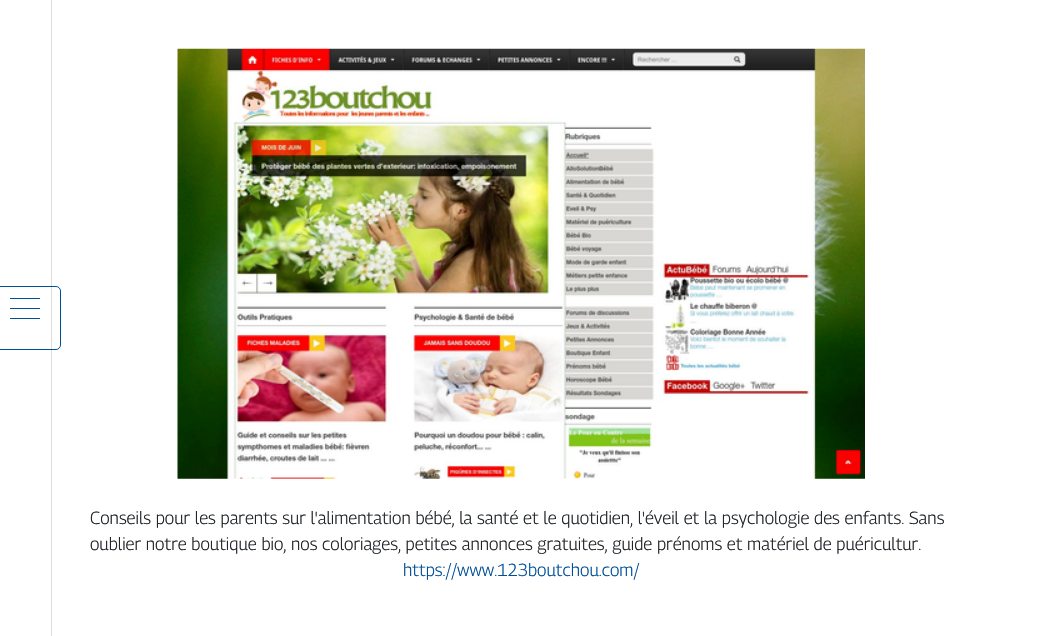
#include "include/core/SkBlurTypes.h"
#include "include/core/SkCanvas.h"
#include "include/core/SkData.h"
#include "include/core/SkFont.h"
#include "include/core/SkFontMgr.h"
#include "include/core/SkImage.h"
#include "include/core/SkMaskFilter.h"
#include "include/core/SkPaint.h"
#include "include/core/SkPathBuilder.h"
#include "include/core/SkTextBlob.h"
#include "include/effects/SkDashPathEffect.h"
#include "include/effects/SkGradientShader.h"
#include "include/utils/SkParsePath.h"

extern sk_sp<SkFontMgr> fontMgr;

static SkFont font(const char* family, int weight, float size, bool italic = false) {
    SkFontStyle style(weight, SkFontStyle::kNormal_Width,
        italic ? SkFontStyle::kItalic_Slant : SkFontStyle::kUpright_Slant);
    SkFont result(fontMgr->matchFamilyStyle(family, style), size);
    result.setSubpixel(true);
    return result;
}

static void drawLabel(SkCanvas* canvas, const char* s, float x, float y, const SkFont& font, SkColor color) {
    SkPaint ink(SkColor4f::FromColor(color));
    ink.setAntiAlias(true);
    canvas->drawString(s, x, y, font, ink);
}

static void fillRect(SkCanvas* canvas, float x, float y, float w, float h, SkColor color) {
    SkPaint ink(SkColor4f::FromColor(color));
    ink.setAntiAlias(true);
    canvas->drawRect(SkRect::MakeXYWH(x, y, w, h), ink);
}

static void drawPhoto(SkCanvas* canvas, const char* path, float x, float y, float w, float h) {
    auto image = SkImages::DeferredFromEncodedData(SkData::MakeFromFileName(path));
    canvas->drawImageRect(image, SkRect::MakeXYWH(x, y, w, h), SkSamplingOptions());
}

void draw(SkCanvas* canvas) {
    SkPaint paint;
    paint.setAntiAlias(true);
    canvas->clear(0xFFFFFFFF);
    fillRect(canvas, 51, 0, 1, 636, 0xFFDDDDDD);
    paint.setStroke(true);
    paint.setStrokeWidth(1);
    paint.setColor(0xFF005097);
    canvas->drawRoundRect(SkRect::MakeXYWH(-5.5f, 286.5f, 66, 63), 4.5f, 4.5f, paint);
    fillRect(canvas, 10, 298, 30, 1, 0xFF005097);
    fillRect(canvas, 10, 308, 30, 1, 0xFF005097);
    fillRect(canvas, 10, 318, 30, 1, 0xFF005097);
    drawPhoto(canvas, "assets/img1.png", 177, 48, 688, 431);
    SkFont font1 = font("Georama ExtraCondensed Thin", 100, 17.5f);
    drawLabel(canvas, "Conseils pour les parents sur l'alimentation bébé, la santé et le quotidien, l'éveil et la psychologie des enfants. Sans", 90, 524, font1, 0xFF212529);
    drawLabel(canvas, "oublier notre boutique bio, nos coloriages, petites annonces gratuites, guide prénoms et matériel de puéricultur.", 90, 550, font1, 0xFF212529);
    drawLabel(canvas, "https://www.123boutchou.com/", 403, 576, font1, 0xFF005097);
}
